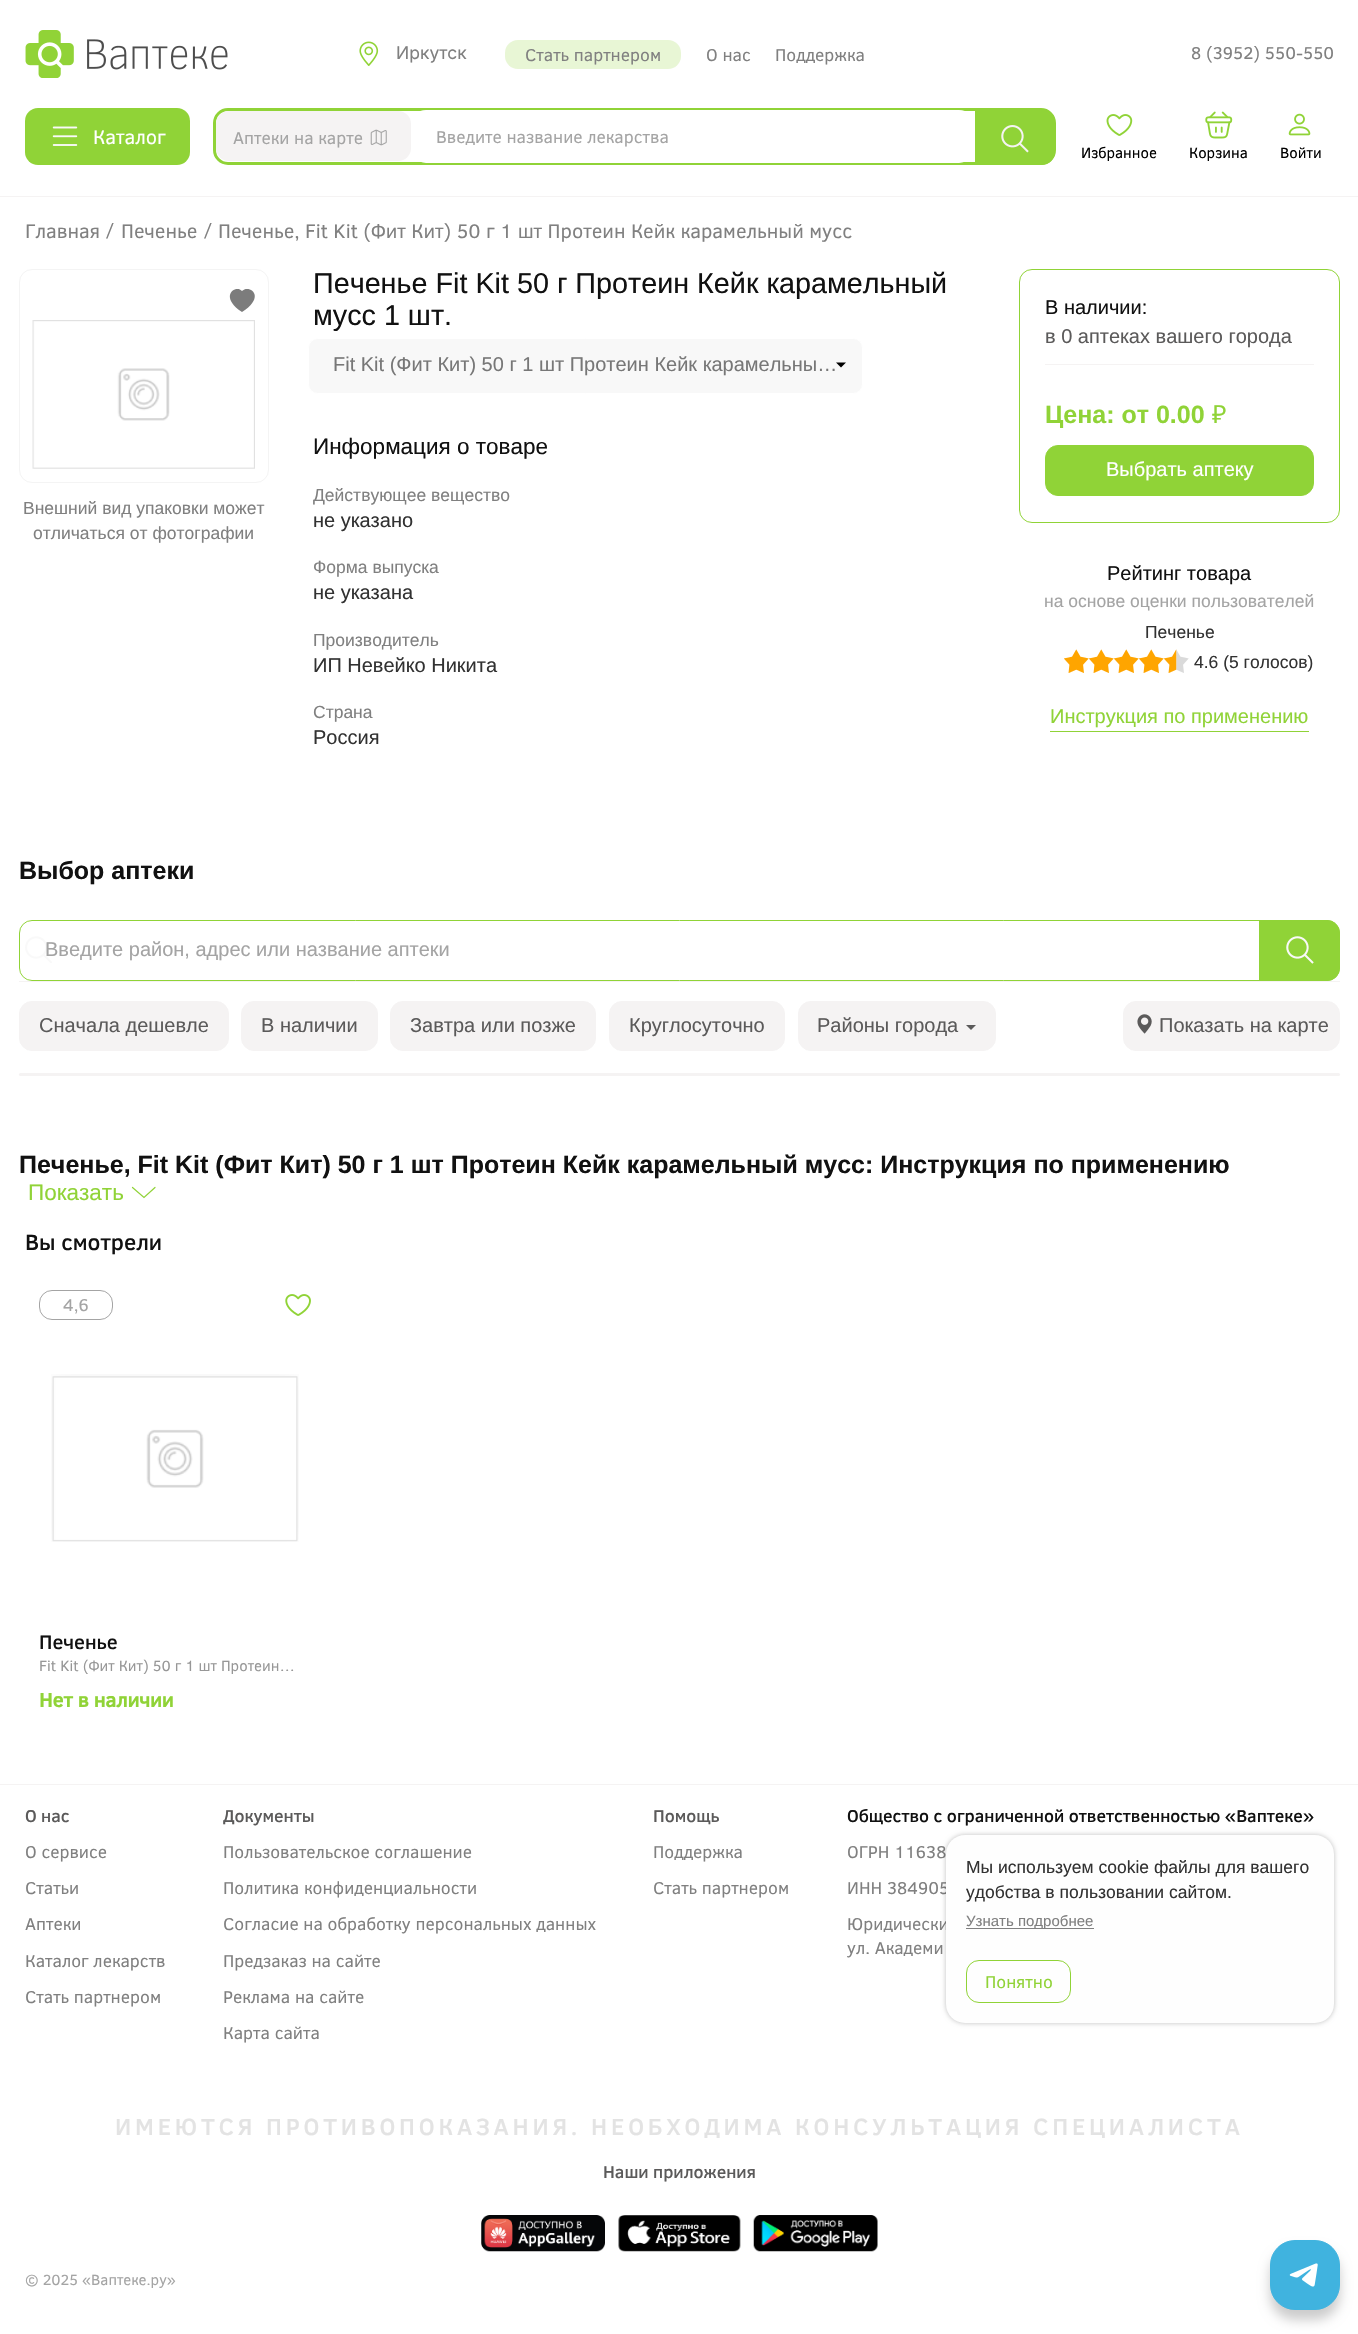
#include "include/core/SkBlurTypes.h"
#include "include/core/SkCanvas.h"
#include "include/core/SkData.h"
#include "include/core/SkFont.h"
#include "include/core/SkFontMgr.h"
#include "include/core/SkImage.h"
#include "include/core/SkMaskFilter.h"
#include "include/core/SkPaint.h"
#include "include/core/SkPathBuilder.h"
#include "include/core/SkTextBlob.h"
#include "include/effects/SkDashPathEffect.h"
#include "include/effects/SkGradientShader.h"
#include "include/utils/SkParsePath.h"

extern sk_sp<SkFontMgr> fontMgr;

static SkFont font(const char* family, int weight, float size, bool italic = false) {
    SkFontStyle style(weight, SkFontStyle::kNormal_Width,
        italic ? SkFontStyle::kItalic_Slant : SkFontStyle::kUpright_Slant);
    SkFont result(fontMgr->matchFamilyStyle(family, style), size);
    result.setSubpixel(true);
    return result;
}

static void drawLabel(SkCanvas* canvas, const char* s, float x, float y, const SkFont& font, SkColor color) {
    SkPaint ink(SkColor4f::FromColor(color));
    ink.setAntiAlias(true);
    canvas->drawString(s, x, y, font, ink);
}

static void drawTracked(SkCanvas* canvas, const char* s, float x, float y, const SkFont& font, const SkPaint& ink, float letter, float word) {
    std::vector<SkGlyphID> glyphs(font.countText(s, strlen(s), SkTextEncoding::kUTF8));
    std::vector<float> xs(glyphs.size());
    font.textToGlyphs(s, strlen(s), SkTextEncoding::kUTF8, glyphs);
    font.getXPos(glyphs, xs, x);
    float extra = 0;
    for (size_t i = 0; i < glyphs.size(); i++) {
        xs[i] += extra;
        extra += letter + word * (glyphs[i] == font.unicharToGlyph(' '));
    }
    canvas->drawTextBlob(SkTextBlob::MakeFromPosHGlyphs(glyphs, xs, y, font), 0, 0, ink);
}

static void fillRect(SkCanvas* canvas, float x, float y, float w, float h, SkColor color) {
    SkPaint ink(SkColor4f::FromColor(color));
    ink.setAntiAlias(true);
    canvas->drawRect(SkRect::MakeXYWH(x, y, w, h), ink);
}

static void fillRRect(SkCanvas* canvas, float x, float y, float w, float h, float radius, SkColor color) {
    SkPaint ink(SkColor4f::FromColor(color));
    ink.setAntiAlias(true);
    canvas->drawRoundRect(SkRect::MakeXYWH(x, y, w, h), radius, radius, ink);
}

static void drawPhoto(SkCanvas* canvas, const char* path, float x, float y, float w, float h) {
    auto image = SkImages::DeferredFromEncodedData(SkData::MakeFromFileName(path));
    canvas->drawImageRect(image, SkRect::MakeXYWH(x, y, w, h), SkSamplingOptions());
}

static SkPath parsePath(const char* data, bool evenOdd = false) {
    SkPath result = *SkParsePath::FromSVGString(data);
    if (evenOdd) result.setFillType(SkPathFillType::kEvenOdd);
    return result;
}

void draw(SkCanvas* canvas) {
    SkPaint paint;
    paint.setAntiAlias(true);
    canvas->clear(0xFFFFFFFF);
    fillRect(canvas, 0, 196, 1358, 1, 0xFFF5F3F3);
    drawPhoto(canvas, "assets/img1.png", 25, 30, 203, 48);
    drawPhoto(canvas, "assets/img2.png", 359, 41, 20, 25);
    SkFont font1 = font("Inter", 400, 17.5f);
    drawLabel(canvas, "Иркутск", 396, 59, font1, 0xFF808080);
    fillRRect(canvas, 505, 40, 176, 29, 13, 0xFFE8F6D5);
    SkFont font2 = font("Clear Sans", 400, 17.5f);
    drawLabel(canvas, "Стать партнером", 525, 61, font2, 0xFF808080);
    drawLabel(canvas, "О нас", 706, 61, font2, 0xFF808080);
    drawLabel(canvas, "Поддержка", 775, 61, font2, 0xFF808080);
    drawLabel(canvas, "8 (3952) 550-550", 1191, 59, font2, 0xFF808080);
    fillRRect(canvas, 25, 108, 165, 57, 13, 0xFF90D337);
    drawPhoto(canvas, "assets/img3.png", 52, 126, 26, 20);
    SkFont font3 = font("Clear Sans", 400, 20);
    drawLabel(canvas, "Каталог", 93, 144, font3, 0xFFFFFFFF);
    paint.setStroke(true);
    paint.setStrokeWidth(3);
    paint.setColor(0xFF90D337);
    canvas->drawRoundRect(SkRect::MakeXYWH(214.5f, 109.5f, 840, 54), 13.5f, 13.5f, paint);
    fillRRect(canvas, 216, 111, 195, 50, 13, 0xFFF5F3F3);
    drawLabel(canvas, "Аптеки на карте", 233, 144, font2, 0xFFA4A4A4);
    drawPhoto(canvas, "assets/img4.png", 370, 129, 17, 17);
    fillRRect(canvas, 411, 110, 563, 53, 15, 0xFFFFFFFF);
    drawLabel(canvas, "Введите название лекарства", 436, 143, font2, 0xFFA4A4A4);
    paint.setStroke(false);
    canvas->drawPath(parsePath("M975 109H1042C1049 109 1055 115 1055 122V152C1055 159 1049 165 1042 165H975Z"), paint);
    drawPhoto(canvas, "assets/img5.png", 1001, 125, 28, 28);
    drawPhoto(canvas, "assets/img6.png", 1106, 114, 27, 22);
    SkFont font4 = font("Clear Sans", 400, 15);
    drawLabel(canvas, "Избранное", 1081, 158, font4, 0xFF000000);
    drawPhoto(canvas, "assets/img7.png", 1205, 111, 28, 28);
    drawLabel(canvas, "Корзина", 1189, 158, font4, 0xFF000000);
    drawPhoto(canvas, "assets/img8.png", 1288, 113, 23, 23);
    drawLabel(canvas, "Войти", 1280, 158, font4, 0xFF000000);
    drawLabel(canvas, "Главная", 25, 238, font3, 0xFF808080);
    drawLabel(canvas, "/", 106, 236, font2, 0xFF808080);
    drawLabel(canvas, "Печенье", 121, 238, font3, 0xFF808080);
    drawLabel(canvas, "/", 204, 236, font2, 0xFF808080);
    drawLabel(canvas, "Печенье, Fit Kit (Фит Кит) 50 г 1 шт Протеин Кейк карамельный мусс", 218, 238, font3, 0xFF808080);
    paint.setStroke(true);
    paint.setStrokeWidth(1);
    paint.setColor(0xFFF4F4F4);
    canvas->drawRoundRect(SkRect::MakeXYWH(19.5f, 269.5f, 249, 213), 12.5f, 12.5f, paint);
    paint.setStroke(false);
    paint.setColor(0xFF7C7C7C);
    canvas->drawPath(parsePath("M242 291C249 284 267 296 242 312C218 296 236 284 242 291Z", true), paint);
    drawPhoto(canvas, "assets/img9.png", 32, 320, 223, 149);
    SkFont font5 = font("Liberation Sans", 400, 17.5f);
    drawLabel(canvas, "Внешний вид упаковки может", 23, 514, font5, 0xFF808080);
    drawLabel(canvas, "отличаться от фотографии", 33, 539, font5, 0xFF808080);
    SkFont font6 = font("Liberation Sans", 400, 28.75f);
    drawLabel(canvas, "Печенье Fit Kit 50 г Протеин Кейк карамельный", 313, 293, font6, 0xFF111111);
    drawLabel(canvas, "мусс 1 шт.", 313, 325, font6, 0xFF111111);
    paint.setColor(0xFFF8F8F8);
    canvas->drawRoundRect(SkRect::MakeXYWH(308.5f, 338.5f, 554, 55), 9.5f, 9.5f, paint);
    paint.setStroke(true);
    paint.setColor(0xFFFFFFFF);
    canvas->drawRoundRect(SkRect::MakeXYWH(308.5f, 338.5f, 554, 55), 9.5f, 9.5f, paint);
    SkFont font7 = font("Liberation Sans", 400, 20);
    drawLabel(canvas, "Fit Kit (Фит Кит) 50 г 1 шт Протеин Кейк карамельны…", 333, 371, font7, 0xFF777777);
    paint.setStroke(false);
    paint.setColor(0xFF000000);
    canvas->drawPath(parsePath("M836 362.5H846L841 367.5Z"), paint);
    SkFont font8 = font("Liberation Sans", 400, 22.5f);
    drawLabel(canvas, "Информация о товаре", 313, 454, font8, 0xFF111111);
    drawLabel(canvas, "Действующее вещество", 313, 501, font5, 0xFF808080);
    drawLabel(canvas, "не указано", 313, 527, font7, 0xFF323232);
    drawLabel(canvas, "Форма выпуска", 313, 573, font5, 0xFF808080);
    drawLabel(canvas, "не указана", 313, 599, font7, 0xFF323232);
    drawLabel(canvas, "Производитель", 313, 646, font5, 0xFF808080);
    drawLabel(canvas, "ИП Невейко Никита", 313, 672, font7, 0xFF323232);
    drawLabel(canvas, "Страна", 313, 718, font5, 0xFF808080);
    drawLabel(canvas, "Россия", 313, 744, font7, 0xFF323232);
    paint.setStroke(true);
    paint.setColor(0xFF90D337);
    canvas->drawRoundRect(SkRect::MakeXYWH(1019.5f, 269.5f, 320, 253), 12.5f, 12.5f, paint);
    drawLabel(canvas, "В наличии:", 1045, 314, font7, 0xFF111111);
    fillRect(canvas, 1045, 364, 269, 1, 0xFFF5F3F3);
    drawLabel(canvas, "в 0 аптеках вашего города", 1045, 343, font7, 0xFF5B5A5A);
    SkFont font9 = font("Liberation Sans", 700, 25);
    drawLabel(canvas, "Цена: от 0.00", 1045, 423, font9, 0xFF90D337);
    SkFont font10 = font("Noto Sans", 400, 25);
    drawLabel(canvas, "₽", 1212, 423, font10, 0xFF90D337);
    paint.setStroke(false);
    canvas->drawRoundRect(SkRect::MakeXYWH(1045.5f, 445.5f, 268, 50), 12.5f, 12.5f, paint);
    paint.setStroke(true);
    canvas->drawRoundRect(SkRect::MakeXYWH(1045.5f, 445.5f, 268, 50), 12.5f, 12.5f, paint);
    drawLabel(canvas, "Выбрать аптеку", 1106, 476, font7, 0xFFFFFFFF);
    drawLabel(canvas, "Рейтинг товара", 1107, 580, font7, 0xFF111111);
    drawLabel(canvas, "на основе оценки пользователей", 1044, 607, font5, 0xFFA4A4A4);
    drawLabel(canvas, "Печенье", 1145, 638, font5, 0xFF323232);
    drawPhoto(canvas, "assets/img10.png", 1064, 649, 25, 24);
    drawPhoto(canvas, "assets/img10.png", 1089, 649, 25, 24);
    drawPhoto(canvas, "assets/img10.png", 1114, 649, 25, 24);
    drawPhoto(canvas, "assets/img10.png", 1139, 649, 25, 24);
    drawPhoto(canvas, "assets/img11.png", 1164, 649, 25, 24);
    drawLabel(canvas, "4.6 (5 голосов)", 1194, 668, font5, 0xFF323232);
    fillRect(canvas, 1050, 731, 259, 1, 0xFF90D337);
    drawLabel(canvas, "Инструкция по применению", 1050, 723, font7, 0xFF90D337);
    drawLabel(canvas, "Выбор аптеки", 19, 879, font9, 0xFF111111);
    fillRect(canvas, 19, 981, 1321, 1, 0xFFF5F3F3);
    drawPhoto(canvas, "assets/img12.png", 25, 936, 27, 27);
    canvas->drawRoundRect(SkRect::MakeXYWH(19.5f, 920.5f, 1320, 60), 12.5f, 12.5f, paint);
    drawLabel(canvas, "Введите район, адрес или название аптеки", 45, 956, font7, 0xFFA4A4A4);
    paint.setStroke(false);
    canvas->drawPath(parsePath("M1259 920H1327C1334 920 1340 926 1340 933V968C1340 975 1334 981 1327 981H1259Z"), paint);
    drawPhoto(canvas, "assets/img13.png", 1286, 936, 28, 28);
    paint.setColor(0xFFF5F3F3);
    canvas->drawRoundRect(SkRect::MakeXYWH(19.5f, 1001.5f, 209, 49), 12.5f, 12.5f, paint);
    paint.setStroke(true);
    canvas->drawRoundRect(SkRect::MakeXYWH(19.5f, 1001.5f, 209, 49), 12.5f, 12.5f, paint);
    drawLabel(canvas, "Сначала дешевле", 39, 1032, font7, 0xFF5B5A5A);
    paint.setStroke(false);
    canvas->drawRoundRect(SkRect::MakeXYWH(241.5f, 1001.5f, 136, 49), 12.5f, 12.5f, paint);
    paint.setStroke(true);
    canvas->drawRoundRect(SkRect::MakeXYWH(241.5f, 1001.5f, 136, 49), 12.5f, 12.5f, paint);
    drawLabel(canvas, "В наличии", 261, 1032, font7, 0xFF5B5A5A);
    paint.setStroke(false);
    canvas->drawRoundRect(SkRect::MakeXYWH(390.5f, 1001.5f, 205, 49), 12.5f, 12.5f, paint);
    paint.setStroke(true);
    canvas->drawRoundRect(SkRect::MakeXYWH(390.5f, 1001.5f, 205, 49), 12.5f, 12.5f, paint);
    drawLabel(canvas, "Завтра или позже", 410, 1032, font7, 0xFF5B5A5A);
    paint.setStroke(false);
    canvas->drawRoundRect(SkRect::MakeXYWH(609.5f, 1001.5f, 175, 49), 12.5f, 12.5f, paint);
    paint.setStroke(true);
    canvas->drawRoundRect(SkRect::MakeXYWH(609.5f, 1001.5f, 175, 49), 12.5f, 12.5f, paint);
    drawLabel(canvas, "Круглосуточно", 629, 1032, font7, 0xFF5B5A5A);
    paint.setStroke(false);
    canvas->drawRoundRect(SkRect::MakeXYWH(798.5f, 1001.5f, 197, 49), 12.5f, 12.5f, paint);
    paint.setStroke(true);
    canvas->drawRoundRect(SkRect::MakeXYWH(798.5f, 1001.5f, 197, 49), 12.5f, 12.5f, paint);
    drawLabel(canvas, "Районы города", 817, 1032, font7, 0xFF5B5A5A);
    paint.setStroke(false);
    paint.setColor(0xFF5B5A5A);
    canvas->drawPath(parsePath("M966 1025H976L971 1030Z"), paint);
    paint.setColor(0xFFF5F3F3);
    canvas->drawRoundRect(SkRect::MakeXYWH(1123.5f, 1001.5f, 216, 49), 12.5f, 12.5f, paint);
    paint.setStroke(true);
    canvas->drawRoundRect(SkRect::MakeXYWH(1123.5f, 1001.5f, 216, 49), 12.5f, 12.5f, paint);
    drawPhoto(canvas, "assets/img14.png", 1137, 1014, 15, 20);
    drawLabel(canvas, "Показать на карте", 1159, 1032, font7, 0xFF5B5A5A);
    fillRRect(canvas, 19, 1073, 1321, 3, 1.5f, 0xFFF5F3F3);
    drawLabel(canvas, "Печенье, Fit Kit (Фит Кит) 50 г 1 шт Протеин Кейк карамельный мусс: Инструкция по применению", 19, 1173, font9, 0xFF111111);
    drawLabel(canvas, "Показать", 28, 1200, font8, 0xFF90D337);
    paint.setStrokeWidth(1.2f);
    paint.setStrokeCap(SkPaint::kRound_Cap);
    paint.setColor(0xFF90D337);
    canvas->drawPath(parsePath("M155 1187.5L144 1197.5L132.5 1187.5"), paint);
    SkFont font11 = font("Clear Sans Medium", 500, 22.5f);
    drawLabel(canvas, "Вы смотрели", 25, 1250, font11, 0xFF111111);
    paint.setStrokeWidth(1);
    paint.setStrokeCap(SkPaint::kButt_Cap);
    paint.setColor(0xFFA4A4A4);
    canvas->drawRoundRect(SkRect::MakeXYWH(39.5f, 1290.5f, 73, 29), 12.5f, 12.5f, paint);
    drawLabel(canvas, "4,6", 63, 1311, font2, 0xFFA4A4A4);
    drawPhoto(canvas, "assets/img15.png", 285, 1294, 26, 22);
    drawPhoto(canvas, "assets/img16.png", 51, 1374, 248, 168);
    SkFont font12 = font("Clear Sans Medium", 500, 20);
    drawLabel(canvas, "Печенье", 39, 1649, font12, 0xFF111111);
    drawLabel(canvas, "Fit Kit (Фит Кит) 50 г 1 шт Протеин…", 39, 1671, font4, 0xFF979797);
    SkFont font13 = font("Clear Sans Medium", 700, 20);
    drawLabel(canvas, "Нет в наличии", 39, 1707, font13, 0xFF90D337);
    fillRect(canvas, 0, 1784, 1358, 1, 0xFFF5F3F3);
    SkFont font14 = font("Clear Sans Medium", 500, 17.5f);
    drawLabel(canvas, "О нас", 25, 1822, font14, 0xFF5B5A5A);
    drawLabel(canvas, "О сервисе", 25, 1858, font2, 0xFF808080);
    drawLabel(canvas, "Статьи", 25, 1894, font2, 0xFF808080);
    drawLabel(canvas, "Аптеки", 25, 1930, font2, 0xFF808080);
    drawLabel(canvas, "Каталог лекарств", 25, 1967, font2, 0xFF808080);
    drawLabel(canvas, "Стать партнером", 25, 2003, font2, 0xFF808080);
    drawLabel(canvas, "Документы", 223, 1822, font14, 0xFF5B5A5A);
    drawLabel(canvas, "Пользовательское соглашение", 223, 1858, font2, 0xFF808080);
    drawLabel(canvas, "Политика конфиденциальности", 223, 1894, font2, 0xFF808080);
    drawLabel(canvas, "Согласие на обработку персональных данных", 223, 1930, font2, 0xFF808080);
    drawLabel(canvas, "Предзаказ на сайте", 223, 1967, font2, 0xFF808080);
    drawLabel(canvas, "Реклама на сайте", 223, 2003, font2, 0xFF808080);
    drawLabel(canvas, "Карта сайта", 223, 2039, font2, 0xFF808080);
    drawLabel(canvas, "Помощь", 653, 1822, font14, 0xFF5B5A5A);
    drawLabel(canvas, "Поддержка", 653, 1858, font2, 0xFF808080);
    drawLabel(canvas, "Стать партнером", 653, 1894, font2, 0xFF808080);
    drawLabel(canvas, "Общество с ограниченной ответственностью «Ваптеке»", 847, 1822, font14, 0xFF111111);
    drawLabel(canvas, "ОГРН 11638", 847, 1858, font2, 0xFF808080);
    drawLabel(canvas, "ИНН 384905", 847, 1894, font2, 0xFF808080);
    drawLabel(canvas, "Юридически", 847, 1930, font2, 0xFF808080);
    drawLabel(canvas, "ул. Академи", 847, 1954, font2, 0xFF808080);
    SkFont font15 = font("Clear Sans Medium", 500, 23.75f);
    paint.setStroke(false);
    paint.setColor(0xFFE3E3E3);
    drawTracked(canvas, "ИМЕЮТСЯ ПРОТИВОПОКАЗАНИЯ. НЕОБХОДИМА КОНСУЛЬТАЦИЯ СПЕЦИАЛИСТА", 115, 2135, font15, paint, 3.8f, 0);
    drawLabel(canvas, "Наши приложения", 603, 2178, font14, 0xFF5B5A5A);
    drawPhoto(canvas, "assets/img17.png", 481, 2215, 124, 37);
    drawPhoto(canvas, "assets/img18.png", 618, 2215, 123, 37);
    drawPhoto(canvas, "assets/img19.png", 753, 2215, 125, 37);
    drawLabel(canvas, "© 2025 «Ваптеке.ру»", 25, 2285, font4, 0xFFA4A4A4);
    paint.setColor(0x40000000);
    paint.setMaskFilter(SkMaskFilter::MakeBlur(kNormal_SkBlurStyle, 2.5f));
    canvas->drawRoundRect(SkRect::MakeXYWH(946, 1835, 388, 188), 19, 19, paint);
    paint.setMaskFilter(nullptr);
    fillRRect(canvas, 946, 1835, 388, 188, 19, 0xFFFEFEFE);
    drawLabel(canvas, "Мы используем cookie файлы для вашего", 966, 1873, font5, 0xFF323232);
    drawLabel(canvas, "удобства в пользовании сайтом.", 966, 1898, font5, 0xFF323232);
    fillRect(canvas, 966, 1928, 128, 1, 0xFF808080);
    SkFont font16 = font("Liberation Sans", 400, 15);
    drawLabel(canvas, "Узнать подробнее", 966, 1926, font16, 0xFF808080);
    paint.setStroke(true);
    paint.setColor(0xFF90D337);
    canvas->drawRoundRect(SkRect::MakeXYWH(966.5f, 1960.5f, 104, 42), 12.5f, 12.5f, paint);
    drawLabel(canvas, "Понятно", 985, 1988, font2, 0xFF90D337);
    paint.setStroke(false);
    paint.setColor(0x33000000);
    paint.setMaskFilter(SkMaskFilter::MakeBlur(kNormal_SkBlurStyle, 6));
    canvas->drawRoundRect(SkRect::MakeXYWH(1270, 2250, 70, 70), 25, 25, paint);
    paint.setMaskFilter(nullptr);
    paint.setColor(0xFF40B3DF);
    canvas->drawRoundRect(SkRect::MakeXYWH(1270.5f, 2240.5f, 69, 69), 24.5f, 24.5f, paint);
    paint.setStroke(true);
    canvas->drawRoundRect(SkRect::MakeXYWH(1270.5f, 2240.5f, 69, 69), 24.5f, 24.5f, paint);
    drawPhoto(canvas, "assets/img20.png", 1289, 2263, 29, 24);
}
